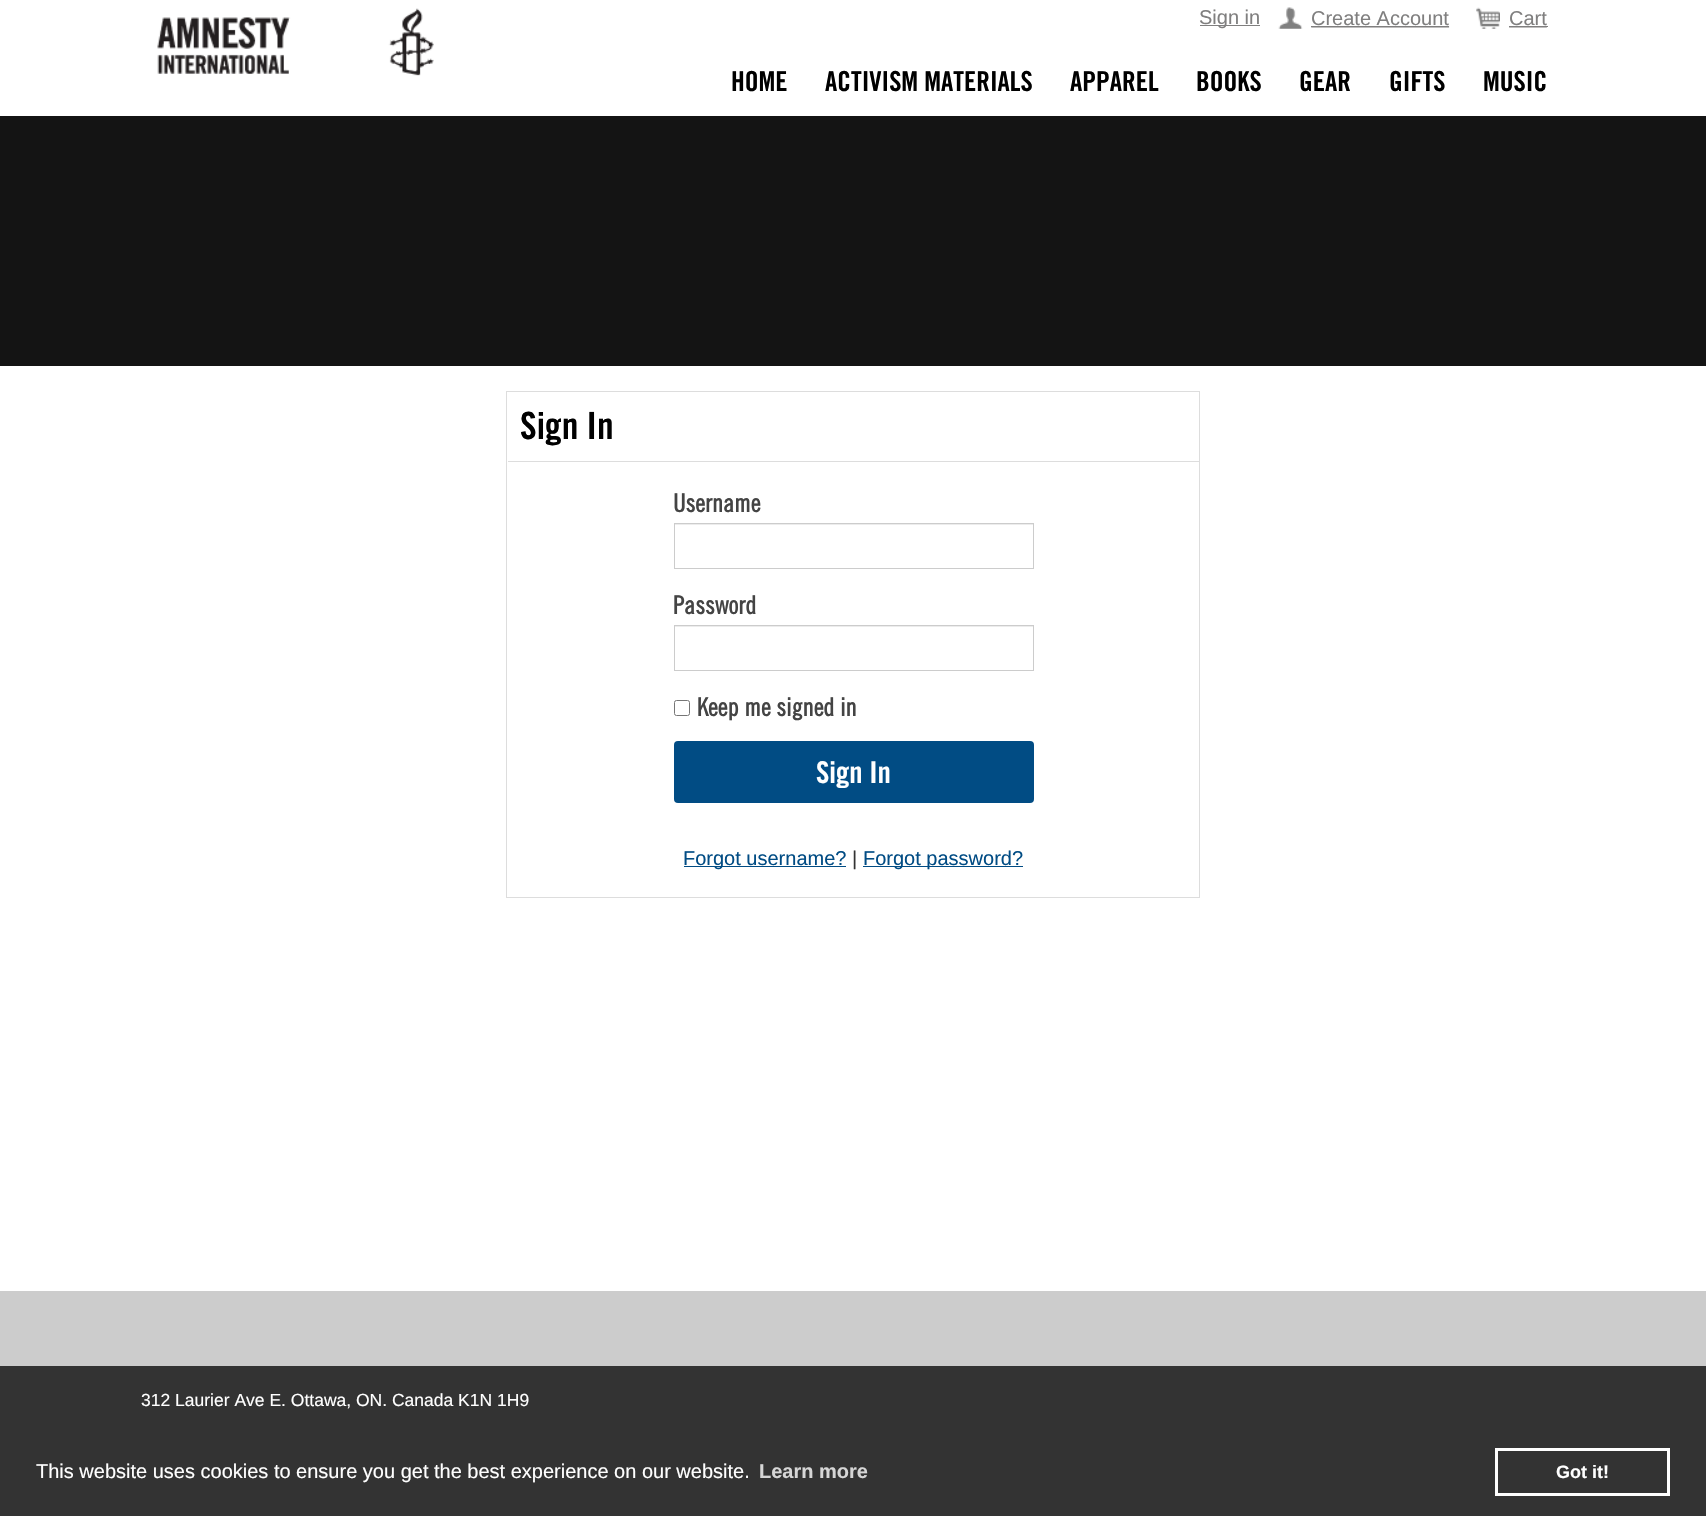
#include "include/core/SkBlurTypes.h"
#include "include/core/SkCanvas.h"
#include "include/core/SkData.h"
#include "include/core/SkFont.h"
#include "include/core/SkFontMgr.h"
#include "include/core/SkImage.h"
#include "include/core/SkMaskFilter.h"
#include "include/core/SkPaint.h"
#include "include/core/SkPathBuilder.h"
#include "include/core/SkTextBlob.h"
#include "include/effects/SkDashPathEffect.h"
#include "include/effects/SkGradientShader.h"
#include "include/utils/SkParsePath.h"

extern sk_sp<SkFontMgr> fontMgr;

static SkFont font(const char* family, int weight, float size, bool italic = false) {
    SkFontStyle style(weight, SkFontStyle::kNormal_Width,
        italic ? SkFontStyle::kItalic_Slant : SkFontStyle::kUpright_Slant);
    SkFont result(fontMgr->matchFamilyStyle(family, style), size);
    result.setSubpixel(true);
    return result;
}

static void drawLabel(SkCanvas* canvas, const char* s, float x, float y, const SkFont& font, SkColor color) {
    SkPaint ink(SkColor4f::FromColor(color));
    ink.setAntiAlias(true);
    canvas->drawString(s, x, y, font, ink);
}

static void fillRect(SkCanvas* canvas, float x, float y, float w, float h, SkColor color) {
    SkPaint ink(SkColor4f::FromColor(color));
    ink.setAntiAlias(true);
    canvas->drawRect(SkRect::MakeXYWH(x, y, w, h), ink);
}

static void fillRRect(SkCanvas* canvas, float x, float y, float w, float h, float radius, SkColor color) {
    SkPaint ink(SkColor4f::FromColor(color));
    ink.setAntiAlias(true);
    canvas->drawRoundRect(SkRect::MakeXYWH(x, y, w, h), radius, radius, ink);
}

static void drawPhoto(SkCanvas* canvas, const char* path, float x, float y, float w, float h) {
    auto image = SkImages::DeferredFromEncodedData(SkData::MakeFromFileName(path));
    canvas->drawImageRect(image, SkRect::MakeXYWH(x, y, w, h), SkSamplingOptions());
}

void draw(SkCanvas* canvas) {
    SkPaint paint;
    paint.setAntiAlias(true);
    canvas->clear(0xFFFFFFFF);
    drawPhoto(canvas, "assets/img1.png", 157, 8, 277, 68);
    fillRect(canvas, 1200, 25, 60, 1, 0xFF807F7F);
    SkFont font1 = font("Liberation Sans", 400, 20);
    drawLabel(canvas, "Sign in", 1199, 24, font1, 0xFF807F7F);
    drawPhoto(canvas, "assets/img2.png", 1278, 7, 172, 22);
    drawLabel(canvas, "Create Account", 1311, 25, font1, 0xFF807F7F);
    fillRect(canvas, 1311, 26, 138, 1, 0xFF807F7F);
    drawPhoto(canvas, "assets/img3.png", 1476, 7, 71, 22);
    drawLabel(canvas, "Cart", 1509, 25, font1, 0xFF807F7F);
    fillRect(canvas, 1509, 26, 39, 1, 0xFF807F7F);
    SkFont font2 = font("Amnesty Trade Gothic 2", 700, 27.5f);
    drawLabel(canvas, "HOME", 731, 91, font2, 0xFF000000);
    drawLabel(canvas, "ACTIVISM MATERIALS", 825, 91, font2, 0xFF000000);
    drawLabel(canvas, "APPAREL", 1070, 91, font2, 0xFF000000);
    drawLabel(canvas, "BOOKS", 1196, 91, font2, 0xFF000000);
    drawLabel(canvas, "GEAR", 1299, 91, font2, 0xFF000000);
    drawLabel(canvas, "GIFTS", 1389, 91, font2, 0xFF000000);
    drawLabel(canvas, "MUSIC", 1483, 91, font2, 0xFF000000);
    fillRect(canvas, 0, 116, 1706, 250, 0xFF141414);
    paint.setStroke(true);
    paint.setStrokeWidth(1);
    paint.setColor(0xFFDDDDDD);
    canvas->drawRect(SkRect::MakeXYWH(506.5f, 391.5f, 693, 506), paint);
    fillRect(canvas, 508, 461, 691, 1, 0xFFDDDDDD);
    SkFont font3 = font("Amnesty Trade Gothic 2", 700, 37.5f);
    drawLabel(canvas, "Sign In", 520, 439, font3, 0xFF000000);
    SkFont font4 = font("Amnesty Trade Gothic", 700, 25);
    drawLabel(canvas, "Username", 673, 512, font4, 0xFF444444);
    fillRect(canvas, 675, 524, 358, 1, 0xFFECECEC);
    paint.setColor(0xFFCCCCCC);
    canvas->drawRect(SkRect::MakeXYWH(674.5f, 523.5f, 359, 45), paint);
    drawLabel(canvas, "Password", 673, 614, font4, 0xFF444444);
    fillRect(canvas, 675, 626, 358, 1, 0xFFECECEC);
    canvas->drawRect(SkRect::MakeXYWH(674.5f, 625.5f, 359, 45), paint);
    paint.setColor(0xFF767676);
    canvas->drawRoundRect(SkRect::MakeXYWH(674.5f, 700.5f, 15, 15), 2, 2, paint);
    drawLabel(canvas, "Keep me signed in", 697, 716, font4, 0xFF444444);
    fillRRect(canvas, 674, 741, 360, 62, 4, 0xFF014C84);
    SkFont font5 = font("Amnesty Trade Gothic 2", 700, 30);
    drawLabel(canvas, "Sign In", 816, 783, font5, 0xFFFFFFFF);
    fillRect(canvas, 684, 866, 162, 1, 0xFF014C84);
    drawLabel(canvas, "Forgot username?", 683, 865, font1, 0xFF014C84);
    drawLabel(canvas, "|", 852, 865, font1, 0xFF333333);
    fillRect(canvas, 863, 866, 160, 1, 0xFF014C84);
    drawLabel(canvas, "Forgot password?", 863, 865, font1, 0xFF014C84);
    fillRect(canvas, 0, 1291, 1706, 75, 0xFFCCCCCC);
    fillRect(canvas, 0, 1366, 1706, 150, 0xFF333333);
    SkFont font6 = font("Liberation Sans", 400, 17.5f);
    drawLabel(canvas, "312 Laurier Ave E. Ottawa, ON. Canada K1N 1H9", 141, 1406, font6, 0xFFFFFFFF);
    drawLabel(canvas, "This website uses cookies to ensure you get the best experience on our website.", 36, 1478, font1, 0xFFFFFFFF);
    SkFont font7 = font("Liberation Sans", 700, 20);
    drawLabel(canvas, "Learn more", 759, 1478, font7, 0xFFD6D6D6);
    paint.setStrokeWidth(3);
    paint.setColor(0xFFFFFFFF);
    canvas->drawRect(SkRect::MakeXYWH(1496.5f, 1449.5f, 172, 45), paint);
    SkFont font8 = font("Liberation Sans", 700, 18);
    drawLabel(canvas, "Got it!", 1556, 1478, font8, 0xFFFFFFFF);
}
